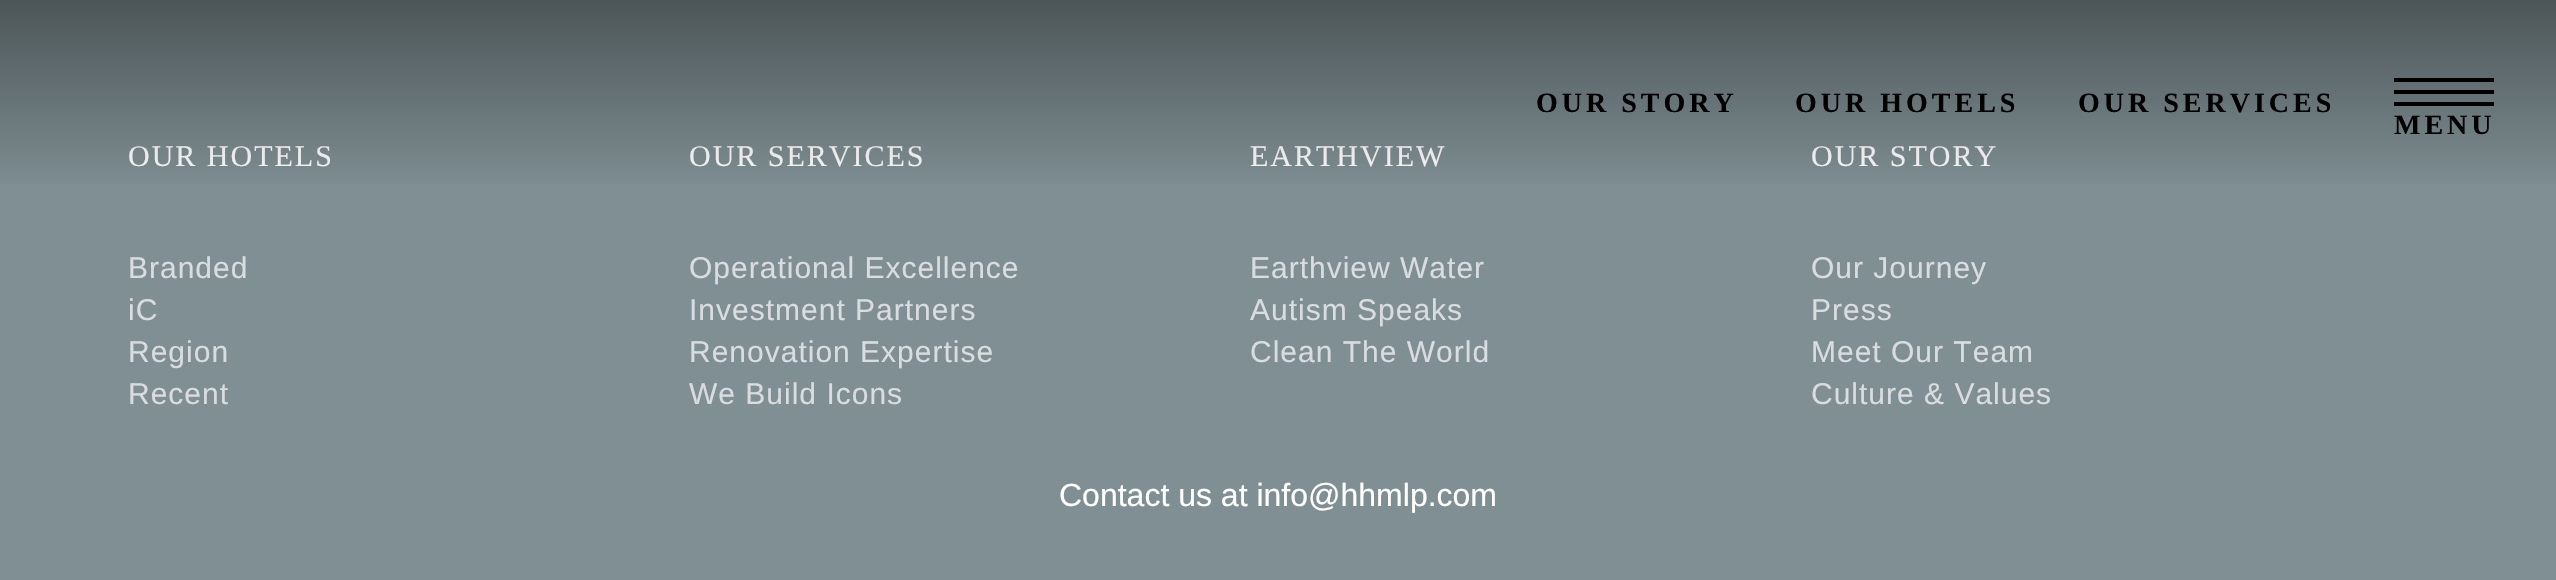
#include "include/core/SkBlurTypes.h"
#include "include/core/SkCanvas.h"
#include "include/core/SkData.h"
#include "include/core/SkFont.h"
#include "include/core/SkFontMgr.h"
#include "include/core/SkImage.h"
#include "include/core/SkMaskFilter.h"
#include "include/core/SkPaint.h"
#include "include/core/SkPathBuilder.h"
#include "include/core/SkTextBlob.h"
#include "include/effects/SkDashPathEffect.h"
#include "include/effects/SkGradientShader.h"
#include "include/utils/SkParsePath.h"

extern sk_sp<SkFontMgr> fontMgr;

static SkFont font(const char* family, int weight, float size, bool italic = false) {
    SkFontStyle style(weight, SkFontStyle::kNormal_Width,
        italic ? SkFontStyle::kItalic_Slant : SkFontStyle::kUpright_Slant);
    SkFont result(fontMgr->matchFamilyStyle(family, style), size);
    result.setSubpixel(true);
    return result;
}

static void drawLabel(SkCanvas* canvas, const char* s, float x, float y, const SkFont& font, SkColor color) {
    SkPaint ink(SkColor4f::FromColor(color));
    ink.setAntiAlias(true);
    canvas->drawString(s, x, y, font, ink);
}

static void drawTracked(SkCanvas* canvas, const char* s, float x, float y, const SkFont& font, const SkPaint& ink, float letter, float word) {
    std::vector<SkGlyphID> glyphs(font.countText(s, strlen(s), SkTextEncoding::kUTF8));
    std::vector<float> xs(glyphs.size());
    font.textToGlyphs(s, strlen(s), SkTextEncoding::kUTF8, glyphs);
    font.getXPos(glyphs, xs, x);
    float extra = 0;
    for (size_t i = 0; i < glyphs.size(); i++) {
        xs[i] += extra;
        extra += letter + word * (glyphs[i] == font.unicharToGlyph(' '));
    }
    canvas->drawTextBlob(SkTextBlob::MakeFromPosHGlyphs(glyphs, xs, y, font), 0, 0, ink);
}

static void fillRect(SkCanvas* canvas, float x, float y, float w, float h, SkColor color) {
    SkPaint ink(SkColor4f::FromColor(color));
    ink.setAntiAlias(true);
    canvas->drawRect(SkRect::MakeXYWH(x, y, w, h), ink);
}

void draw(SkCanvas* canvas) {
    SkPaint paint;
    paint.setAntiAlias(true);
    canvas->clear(0xFF7F8F93);
    SkFont font1 = font("Liberation Serif", 400, 30);
    paint.setColor(0xFFFFFFFF);
    drawTracked(canvas, "OUR HOTELS", 128, 166, font1, paint, 2, 0);
    drawTracked(canvas, "OUR SERVICES", 689, 166, font1, paint, 2, 0);
    drawTracked(canvas, "EARTHVIEW", 1250, 166, font1, paint, 2, 0);
    drawTracked(canvas, "OUR STORY", 1811, 166, font1, paint, 2, 0);
    {
        const SkColor colors[] = {0x66000000, 0x00000000};
        const float stops[] = {0, 1};
        const SkPoint ends[] = {{1278, 0}, {1278, 194}};
        paint.setShader(SkGradientShader::MakeLinear(ends, colors, stops, 2, SkTileMode::kClamp));
        paint.setAlpha(255);
    }
    canvas->drawRect(SkRect::MakeXYWH(0, 0, 2556, 184), paint);
    SkFont font2 = font("Liberation Serif", 700, 28);
    paint.setShader(nullptr);
    paint.setColor(0xFF000000);
    drawTracked(canvas, "OUR STORY", 1536, 112, font2, paint, 4, 0);
    drawTracked(canvas, "OUR HOTELS", 1795, 112, font2, paint, 4, 0);
    drawTracked(canvas, "OUR SERVICES", 2078, 112, font2, paint, 4, 0);
    fillRect(canvas, 2394, 78, 100, 4, 0xFF000000);
    fillRect(canvas, 2394, 90, 100, 4, 0xFF000000);
    fillRect(canvas, 2394, 102, 100, 4, 0xFF000000);
    drawTracked(canvas, "MENU", 2394, 134, font2, paint, 4, 0);
    SkFont font3 = font("Liberation Sans", 400, 30);
    paint.setColor(0xFFD9DDDF);
    drawTracked(canvas, "Branded", 128, 278, font3, paint, 1, 0);
    drawTracked(canvas, "iC", 128, 320, font3, paint, 1, 0);
    drawTracked(canvas, "Region", 128, 362, font3, paint, 1, 0);
    drawTracked(canvas, "Recent", 128, 404, font3, paint, 1, 0);
    drawTracked(canvas, "Operational Excellence", 689, 278, font3, paint, 1, 0);
    drawTracked(canvas, "Investment Partners", 689, 320, font3, paint, 1, 0);
    drawTracked(canvas, "Renovation Expertise", 689, 362, font3, paint, 1, 0);
    drawTracked(canvas, "We Build Icons", 689, 404, font3, paint, 1, 0);
    drawTracked(canvas, "Earthview Water", 1250, 278, font3, paint, 1, 0);
    drawTracked(canvas, "Autism Speaks", 1250, 320, font3, paint, 1, 0);
    drawTracked(canvas, "Clean The World", 1250, 362, font3, paint, 1, 0);
    drawTracked(canvas, "Our Journey", 1811, 278, font3, paint, 1, 0);
    drawTracked(canvas, "Press", 1811, 320, font3, paint, 1, 0);
    drawTracked(canvas, "Meet Our Team", 1811, 362, font3, paint, 1, 0);
    drawTracked(canvas, "Culture & Values", 1811, 404, font3, paint, 1, 0);
    SkFont font4 = font("Liberation Sans", 400, 32);
    drawLabel(canvas, "Contact us at info@hhmlp.com", 1059, 506, font4, 0xFFFFFFFF);
}
